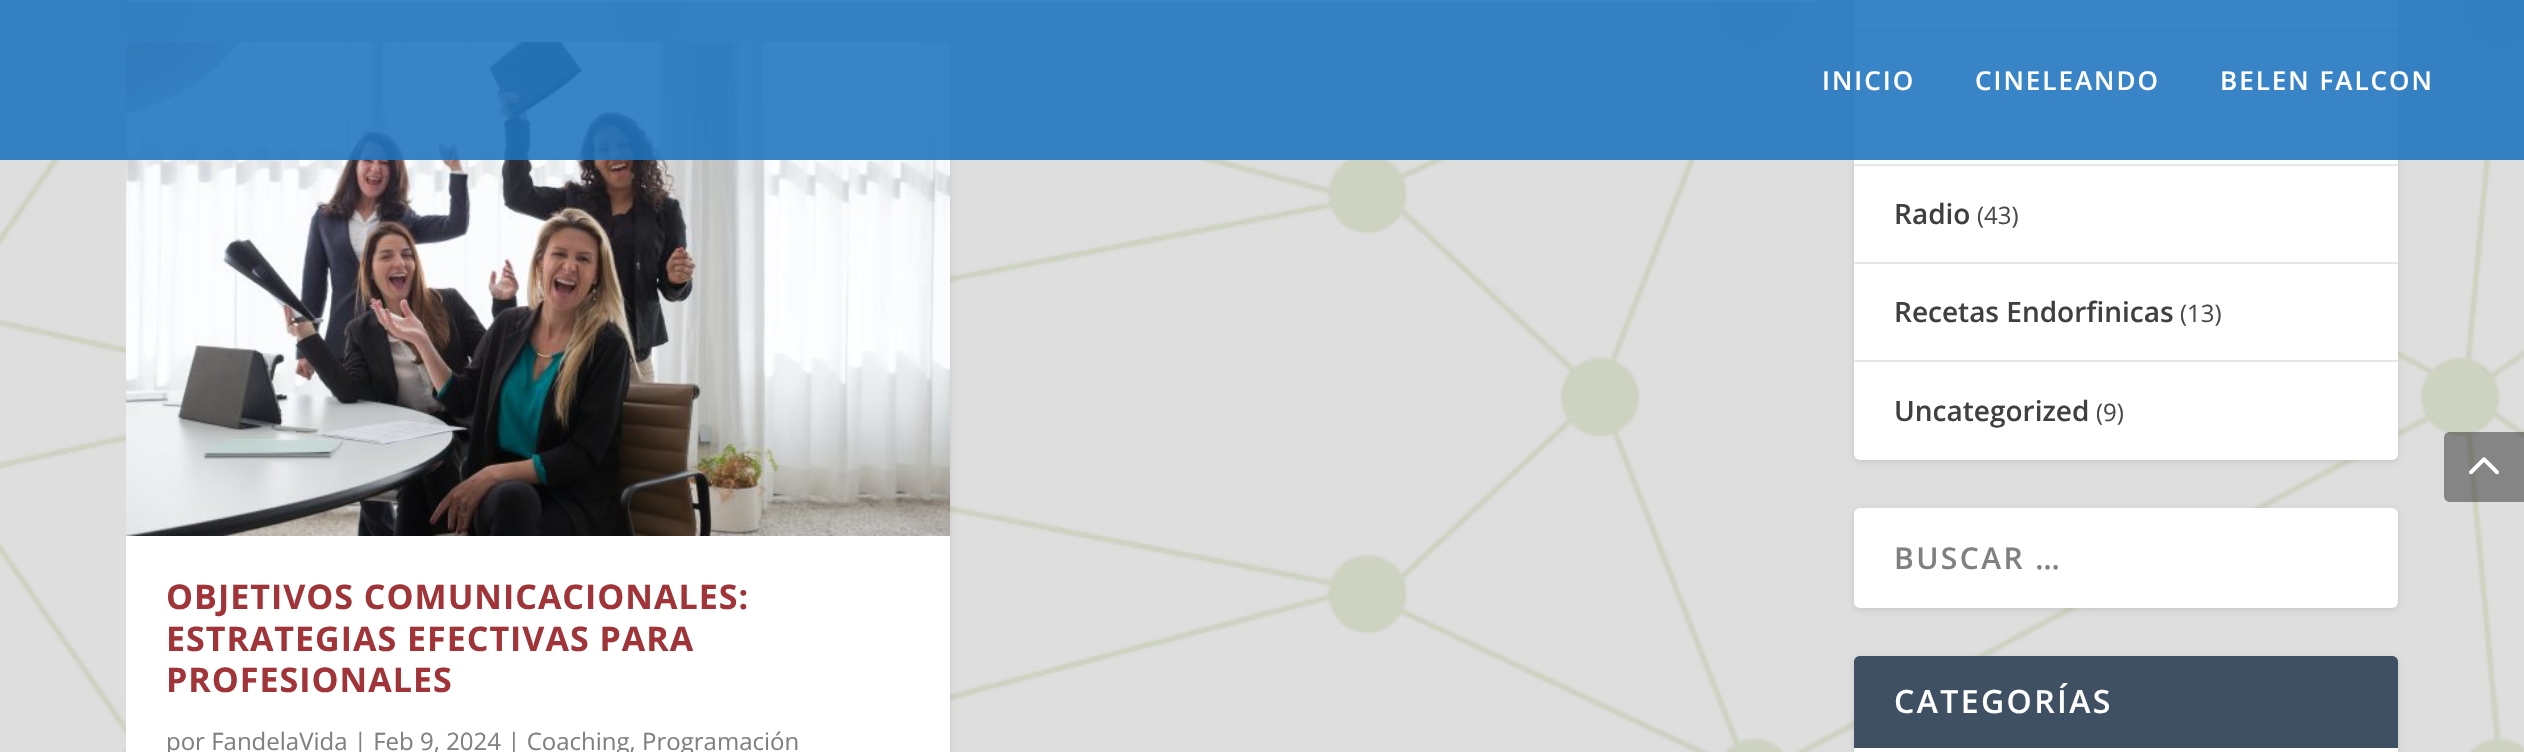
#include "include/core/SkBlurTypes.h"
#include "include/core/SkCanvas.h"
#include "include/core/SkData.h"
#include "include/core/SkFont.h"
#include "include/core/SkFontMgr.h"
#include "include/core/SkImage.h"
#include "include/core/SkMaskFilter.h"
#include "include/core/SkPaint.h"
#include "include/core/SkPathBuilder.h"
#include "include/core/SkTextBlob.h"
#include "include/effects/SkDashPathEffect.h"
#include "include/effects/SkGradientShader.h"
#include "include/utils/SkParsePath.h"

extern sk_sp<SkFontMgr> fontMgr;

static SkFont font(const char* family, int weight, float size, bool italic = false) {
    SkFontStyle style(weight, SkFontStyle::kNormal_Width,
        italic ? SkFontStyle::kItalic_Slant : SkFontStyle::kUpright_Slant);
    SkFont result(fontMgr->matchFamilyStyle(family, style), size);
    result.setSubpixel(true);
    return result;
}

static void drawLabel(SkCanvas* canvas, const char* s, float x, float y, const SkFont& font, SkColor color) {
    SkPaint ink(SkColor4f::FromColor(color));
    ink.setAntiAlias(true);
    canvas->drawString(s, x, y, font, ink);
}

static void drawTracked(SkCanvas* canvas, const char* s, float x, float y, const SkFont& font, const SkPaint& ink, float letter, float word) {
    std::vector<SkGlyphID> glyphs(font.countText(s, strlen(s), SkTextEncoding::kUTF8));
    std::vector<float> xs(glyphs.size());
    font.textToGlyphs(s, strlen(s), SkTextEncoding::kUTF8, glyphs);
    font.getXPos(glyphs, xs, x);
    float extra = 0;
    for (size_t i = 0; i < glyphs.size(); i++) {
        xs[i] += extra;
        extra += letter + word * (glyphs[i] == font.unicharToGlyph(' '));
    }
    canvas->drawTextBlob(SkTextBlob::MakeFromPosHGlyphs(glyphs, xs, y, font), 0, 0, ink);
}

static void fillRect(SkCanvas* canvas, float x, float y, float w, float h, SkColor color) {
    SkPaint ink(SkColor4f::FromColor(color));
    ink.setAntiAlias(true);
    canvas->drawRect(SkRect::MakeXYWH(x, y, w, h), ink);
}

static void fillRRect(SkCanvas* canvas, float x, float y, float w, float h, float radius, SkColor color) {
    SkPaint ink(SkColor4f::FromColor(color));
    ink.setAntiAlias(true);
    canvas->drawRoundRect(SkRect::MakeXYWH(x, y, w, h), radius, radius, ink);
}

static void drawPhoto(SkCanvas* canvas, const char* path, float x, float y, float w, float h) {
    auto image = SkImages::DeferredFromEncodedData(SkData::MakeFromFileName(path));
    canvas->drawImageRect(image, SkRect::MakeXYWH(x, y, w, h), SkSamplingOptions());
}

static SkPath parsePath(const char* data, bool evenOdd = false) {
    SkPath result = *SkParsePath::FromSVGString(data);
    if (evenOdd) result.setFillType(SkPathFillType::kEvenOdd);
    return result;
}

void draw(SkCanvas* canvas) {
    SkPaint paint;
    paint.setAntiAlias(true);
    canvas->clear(0xFFFFFFFF);
    drawPhoto(canvas, "assets/img1.png", 0, 0, 2524, 752);
    paint.setColor(0xFFFFFFFF);
    canvas->drawPath(parsePath("M126-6H1822V-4C1822-.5 1819.5 2 1816 2H132C128.5 2 126-.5 126-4Z"), paint);
    canvas->save();
    canvas->clipPath(parsePath("M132 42H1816C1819.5 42 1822 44.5 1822 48V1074C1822 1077.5 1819.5 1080 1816 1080H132C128.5 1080 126 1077.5 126 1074V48C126 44.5 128.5 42 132 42Z"), true);
    paint.setColor(0x1A000000);
    paint.setMaskFilter(SkMaskFilter::MakeBlur(kNormal_SkBlurStyle, 3));
    canvas->drawRoundRect(SkRect::MakeXYWH(126, 44, 824, 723), 6, 6, paint);
    paint.setMaskFilter(nullptr);
    canvas->restore();
    fillRRect(canvas, 126, 42, 824, 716, 6, 0xFFFFFFFF);
    drawPhoto(canvas, "assets/img2.png", 126, 42, 824, 494);
    paint.setMaskFilter(SkMaskFilter::MakeBlur(kNormal_SkBlurStyle, 3));
    canvas->drawRoundRect(SkRect::MakeXYWH(1854, -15, 544, 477), 6, 6, paint);
    paint.setMaskFilter(nullptr);
    fillRRect(canvas, 1854, -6, 544, 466, 6, 0xFFFFFFFF);
    fillRect(canvas, 1854, 30, 544, 2, 0xFFE6E6E6);
    fillRect(canvas, 0, 0, 2524, 160, 0xE01E73BE);
    SkFont font1 = font("Open Sans", 600, 26);
    paint.setColor(0xFFFFFFFF);
    drawTracked(canvas, "INICIO", 1822, 90, font1, paint, 2, 0);
    drawTracked(canvas, "CINELEANDO", 1975, 90, font1, paint, 2, 0);
    drawTracked(canvas, "BELEN FALCON", 2220, 90, font1, paint, 2, 0);
    SkFont font2 = font("Open Sans", 700, 34);
    paint.setColor(0xFFA13438);
    drawTracked(canvas, "OBJETIVOS COMUNICACIONALES:", 166, 609, font2, paint, 1, 0);
    drawTracked(canvas, "ESTRATEGIAS EFECTIVAS PARA", 166, 651, font2, paint, 1, 0);
    drawTracked(canvas, "PROFESIONALES", 166, 692, font2, paint, 1, 0);
    SkFont font3 = font("Open Sans", 400, 24);
    drawLabel(canvas, "por FandelaVida | Feb 9, 2024 | Coaching, Programación", 166, 750, font3, 0xFF808080);
    fillRect(canvas, 1854, 164, 544, 2, 0xFFE6E6E6);
    fillRect(canvas, 1854, 262, 544, 2, 0xFFE6E6E6);
    SkFont font4 = font("Open Sans", 600, 28);
    drawLabel(canvas, "Radio", 1894, 224, font4, 0xFF404040);
    drawLabel(canvas, "(43)", 1977, 224, font3, 0xFF4A4A4A);
    fillRect(canvas, 1854, 360, 544, 2, 0xFFE6E6E6);
    drawLabel(canvas, "Recetas Endorfinicas", 1894, 322, font4, 0xFF404040);
    drawLabel(canvas, "(13)", 2180, 322, font3, 0xFF4A4A4A);
    drawLabel(canvas, "Uncategorized", 1894, 421, font4, 0xFF404040);
    drawLabel(canvas, "(9)", 2096, 421, font3, 0xFF4A4A4A);
    paint.setColor(0x1A000000);
    paint.setMaskFilter(SkMaskFilter::MakeBlur(kNormal_SkBlurStyle, 3));
    canvas->drawRoundRect(SkRect::MakeXYWH(1854, 510, 544, 100), 6, 6, paint);
    paint.setMaskFilter(nullptr);
    fillRRect(canvas, 1854, 508, 544, 100, 6, 0xFFFFFFFF);
    SkFont font5 = font("Open Sans", 600, 30);
    paint.setColor(0xFF808080);
    drawTracked(canvas, "BUSCAR …", 1894, 569, font5, paint, 2.4f, 0);
    paint.setColor(0x1A000000);
    paint.setMaskFilter(SkMaskFilter::MakeBlur(kNormal_SkBlurStyle, 3));
    canvas->drawRoundRect(SkRect::MakeXYWH(1854, 658, 544, 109), 6, 6, paint);
    paint.setMaskFilter(nullptr);
    fillRRect(canvas, 1854, 656, 544, 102, 6, 0xFFFFFFFF);
    paint.setColor(0xFF3E5062);
    canvas->drawPath(parsePath("M1860 656H2392C2395.5 656 2398 658.5 2398 662V748H1854V662C1854 658.5 1856.5 656 1860 656Z"), paint);
    SkFont font6 = font("Open Sans", 600, 32);
    paint.setColor(0xFFFFFFFF);
    drawTracked(canvas, "CATEGORÍAS", 1894, 713, font6, paint, 2.4f, 0);
    paint.setColor(0x66000000);
    canvas->drawPath(parsePath("M2450 432H2524V502H2450C2446.5 502 2444 499.5 2444 496V438C2444 434.5 2446.5 432 2450 432Z"), paint);
    drawPhoto(canvas, "assets/img3.png", 2469, 457, 30, 18);
}
